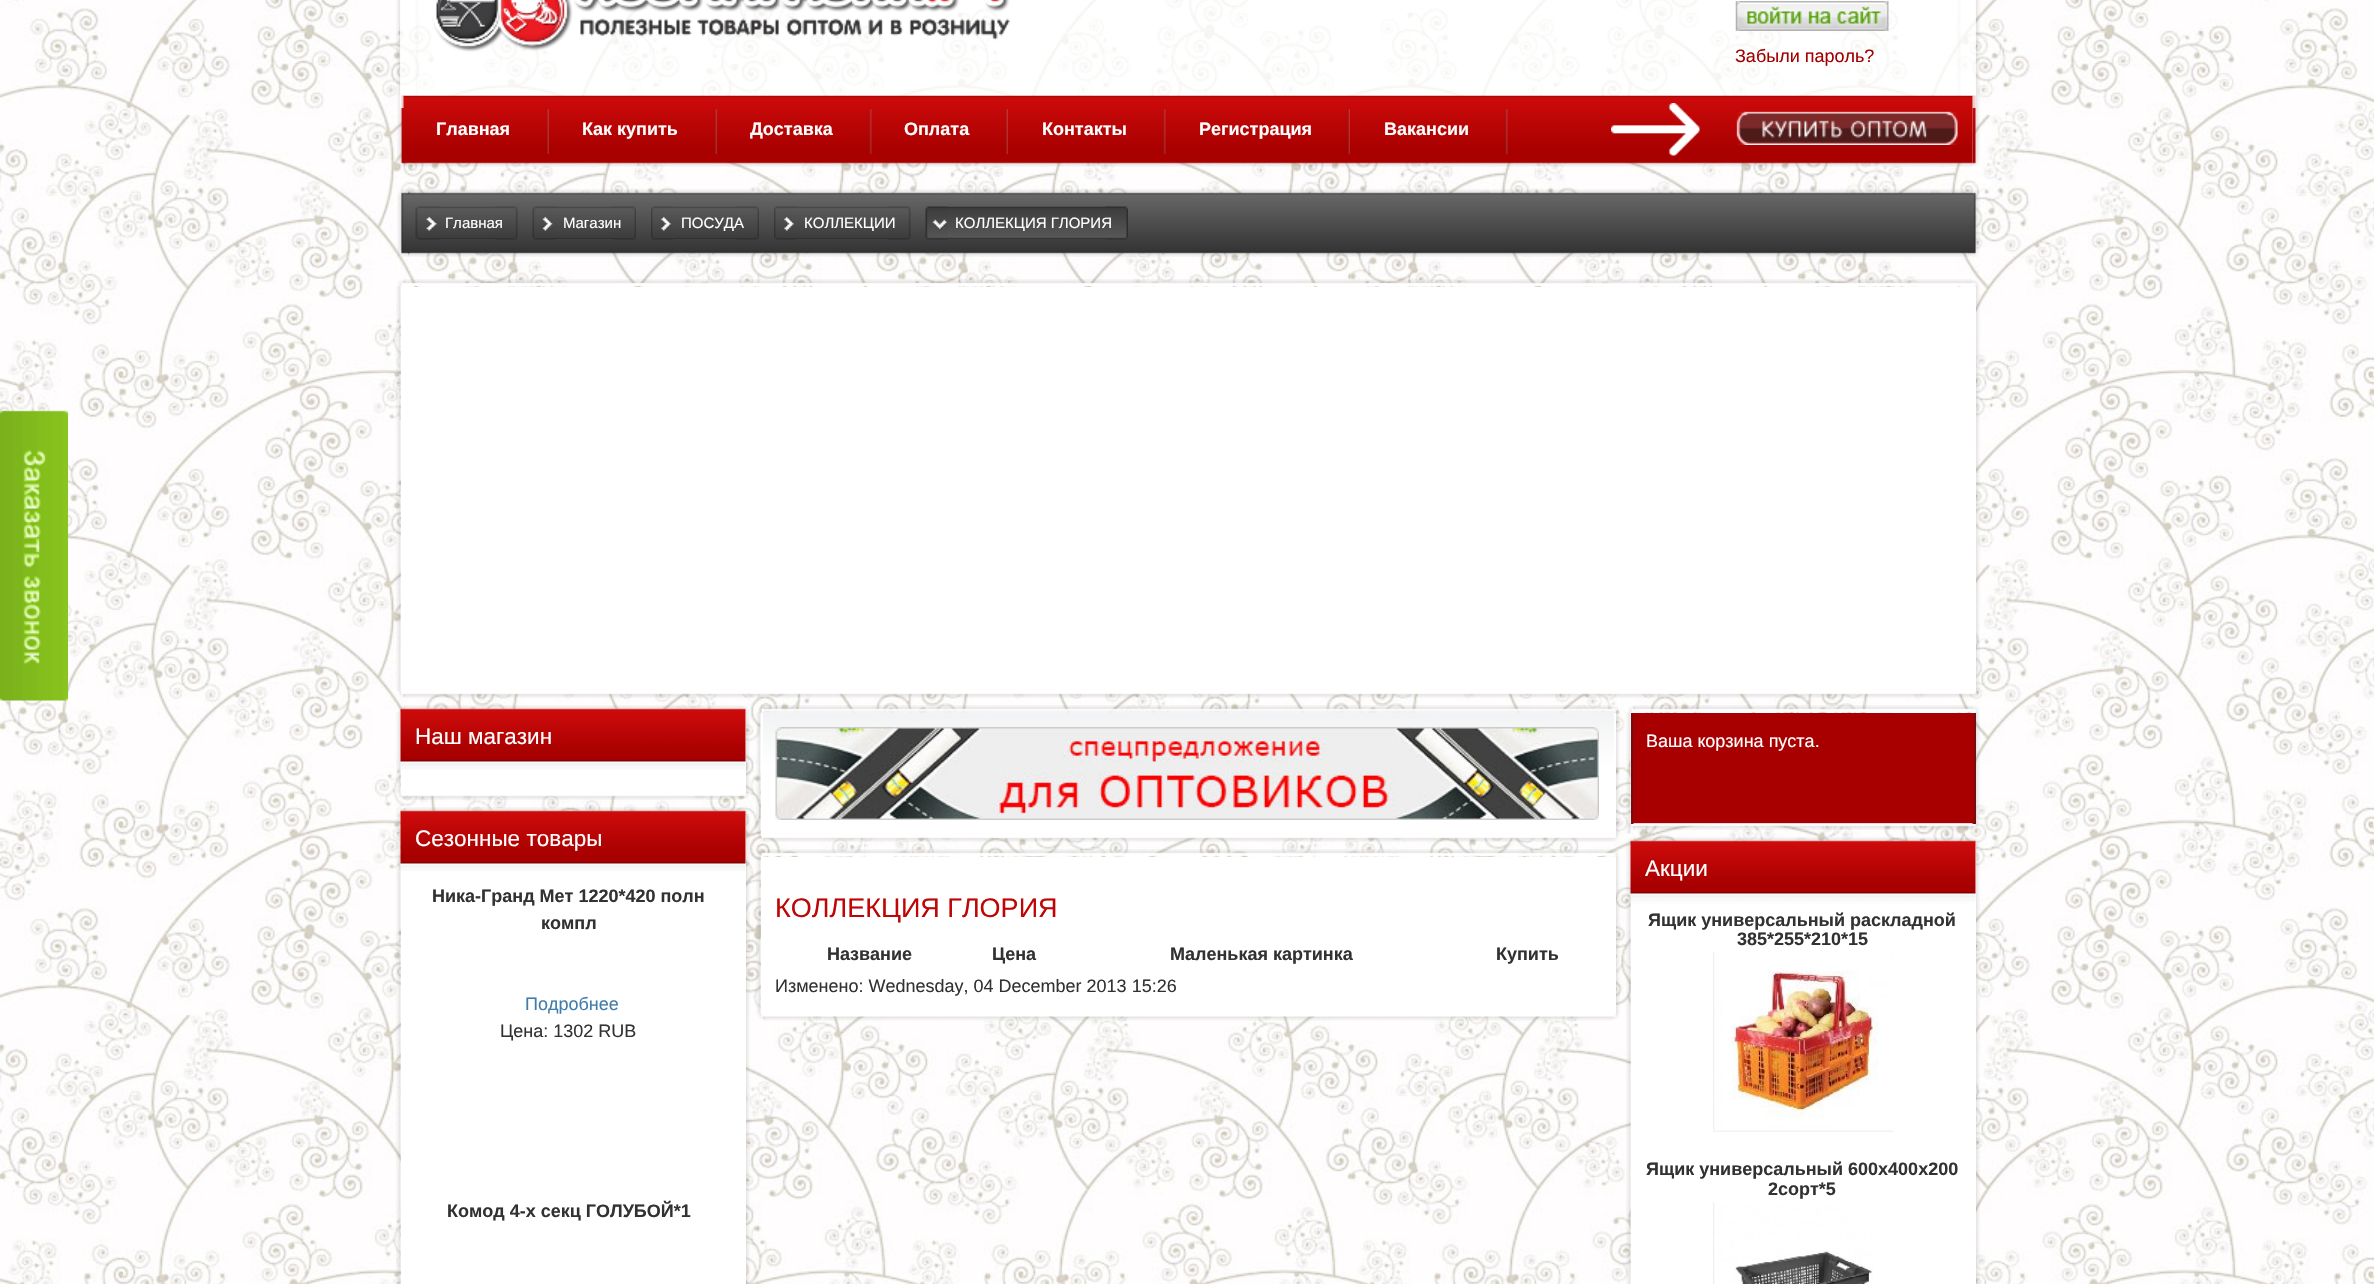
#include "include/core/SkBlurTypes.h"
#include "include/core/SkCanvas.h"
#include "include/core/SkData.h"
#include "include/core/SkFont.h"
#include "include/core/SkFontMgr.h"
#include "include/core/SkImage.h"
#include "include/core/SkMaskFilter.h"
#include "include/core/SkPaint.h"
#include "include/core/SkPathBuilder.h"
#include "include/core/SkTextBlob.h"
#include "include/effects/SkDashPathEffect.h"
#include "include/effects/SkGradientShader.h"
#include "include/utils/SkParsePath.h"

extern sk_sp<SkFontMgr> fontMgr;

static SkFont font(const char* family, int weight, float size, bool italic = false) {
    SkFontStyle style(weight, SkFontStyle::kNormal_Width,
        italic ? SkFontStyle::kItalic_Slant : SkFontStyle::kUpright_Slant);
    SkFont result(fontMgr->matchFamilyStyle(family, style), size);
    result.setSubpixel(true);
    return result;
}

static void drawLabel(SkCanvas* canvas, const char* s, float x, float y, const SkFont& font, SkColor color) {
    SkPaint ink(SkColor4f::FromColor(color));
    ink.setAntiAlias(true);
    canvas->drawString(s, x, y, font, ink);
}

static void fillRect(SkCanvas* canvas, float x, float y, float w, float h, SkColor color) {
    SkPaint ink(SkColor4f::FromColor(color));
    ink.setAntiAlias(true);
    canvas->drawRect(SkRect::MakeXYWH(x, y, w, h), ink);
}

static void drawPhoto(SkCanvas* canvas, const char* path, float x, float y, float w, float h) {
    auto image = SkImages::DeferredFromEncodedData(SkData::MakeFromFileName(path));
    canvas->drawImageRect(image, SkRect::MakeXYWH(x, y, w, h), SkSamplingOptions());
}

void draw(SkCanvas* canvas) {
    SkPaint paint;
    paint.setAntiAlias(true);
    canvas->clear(0xFFFFFFFF);
    drawPhoto(canvas, "assets/img1.png", 0, 0, 2374, 1284);
    drawPhoto(canvas, "assets/img2.png", 0, 410, 68, 291);
    drawPhoto(canvas, "assets/img4.png", 396, 0, 24, 96);
    drawPhoto(canvas, "assets/img5.png", 1956, 0, 24, 96);
    drawPhoto(canvas, "assets/img7.png", 397, 95, 8, 72);
    drawPhoto(canvas, "assets/img8.png", 1972, 95, 8, 71);
    fillRect(canvas, 400, 0, 1576, 108, 0xC9FFFFFF);
    drawPhoto(canvas, "assets/img3.png", 432, 0, 578, 52);
    drawPhoto(canvas, "assets/img6.png", 1735, 1, 154, 30);
    SkFont font1 = font("Liberation Sans", 400, 18);
    drawLabel(canvas, "Забыли пароль?", 1735, 62, font1, 0xFFA30000);
    drawPhoto(canvas, "assets/img9.png", 403, 95, 1570, 72);
    drawPhoto(canvas, "assets/img10.png", 546, 109, 3, 46);
    SkFont font2 = font("Liberation Sans", 700, 18);
    drawLabel(canvas, "Главная", 436, 135, font2, 0xFFFFFFFF);
    drawPhoto(canvas, "assets/img11.png", 714, 109, 3, 46);
    drawLabel(canvas, "Как купить", 582, 135, font2, 0xFFFFFFFF);
    drawPhoto(canvas, "assets/img12.png", 868, 109, 4, 46);
    drawLabel(canvas, "Доставка", 750, 135, font2, 0xFFFFFFFF);
    drawPhoto(canvas, "assets/img13.png", 1005, 109, 3, 46);
    drawLabel(canvas, "Оплата", 904, 135, font2, 0xFFFFFFFF);
    drawPhoto(canvas, "assets/img14.png", 1162, 109, 4, 46);
    drawLabel(canvas, "Контакты", 1042, 135, font2, 0xFFFFFFFF);
    drawPhoto(canvas, "assets/img15.png", 1347, 109, 3, 46);
    drawLabel(canvas, "Регистрация", 1199, 135, font2, 0xFFFFFFFF);
    drawPhoto(canvas, "assets/img14.png", 1504, 109, 4, 46);
    drawLabel(canvas, "Вакансии", 1384, 135, font2, 0xFFFFFFFF);
    drawPhoto(canvas, "assets/img16.png", 1611, 103, 89, 53);
    drawPhoto(canvas, "assets/img17.png", 1736, 111, 222, 34);
    drawPhoto(canvas, "assets/img18.png", 397, 189, 13, 68);
    drawPhoto(canvas, "assets/img19.png", 1968, 189, 12, 68);
    drawPhoto(canvas, "assets/img20.png", 408, 189, 1560, 68);
    drawPhoto(canvas, "assets/img21.png", 415, 206, 25, 34);
    drawPhoto(canvas, "assets/img22.png", 495, 206, 23, 34);
    drawPhoto(canvas, "assets/img23.png", 439, 206, 56, 33);
    SkFont font3 = font("Liberation Sans", 400, 15);
    drawLabel(canvas, "Главная", 445, 228, font3, 0xFFFFFFFF);
    drawPhoto(canvas, "assets/img24.png", 532, 206, 23, 34);
    drawPhoto(canvas, "assets/img25.png", 613, 206, 23, 34);
    drawPhoto(canvas, "assets/img26.png", 555, 206, 59, 33);
    drawLabel(canvas, "Магазин", 563, 228, font3, 0xFFFFFFFF);
    drawPhoto(canvas, "assets/img27.png", 651, 206, 23, 34);
    drawPhoto(canvas, "assets/img25.png", 736, 206, 23, 34);
    drawPhoto(canvas, "assets/img28.png", 673, 206, 64, 33);
    drawLabel(canvas, "ПОСУДА", 681, 228, font3, 0xFFFFFFFF);
    drawPhoto(canvas, "assets/img27.png", 774, 206, 23, 34);
    drawPhoto(canvas, "assets/img22.png", 888, 206, 23, 34);
    drawPhoto(canvas, "assets/img29.png", 796, 206, 92, 33);
    drawLabel(canvas, "КОЛЛЕКЦИИ", 804, 228, font3, 0xFFFFFFFF);
    drawPhoto(canvas, "assets/img30.png", 925, 206, 23, 34);
    drawPhoto(canvas, "assets/img31.png", 1105, 206, 23, 34);
    drawPhoto(canvas, "assets/img32.png", 948, 206, 165, 33);
    drawLabel(canvas, "КОЛЛЕКЦИЯ ГЛОРИЯ", 955, 228, font3, 0xFFFFFFFF);
    drawPhoto(canvas, "assets/img33.png", 398, 280, 7, 6);
    drawPhoto(canvas, "assets/img34.png", 1972, 280, 7, 6);
    drawPhoto(canvas, "assets/img35.png", 403, 279, 1570, 7);
    drawPhoto(canvas, "assets/img36.png", 396, 286, 24, 405);
    drawPhoto(canvas, "assets/img37.png", 1956, 286, 24, 405);
    drawPhoto(canvas, "assets/img38.png", 398, 691, 7, 7);
    drawPhoto(canvas, "assets/img39.png", 1972, 691, 7, 6);
    fillRect(canvas, 401, 287, 1575, 405, 0xFFFFFFFF);
    drawPhoto(canvas, "assets/img40.png", 403, 692, 1570, 6);
    drawPhoto(canvas, "assets/img41.png", 398, 706, 7, 6);
    drawPhoto(canvas, "assets/img42.png", 742, 706, 7, 6);
    drawPhoto(canvas, "assets/img43.png", 403, 705, 340, 5);
    drawPhoto(canvas, "assets/img44.png", 396, 712, 5, 81);
    drawPhoto(canvas, "assets/img45.png", 745, 712, 5, 81);
    drawPhoto(canvas, "assets/img47.png", 398, 793, 7, 7);
    drawPhoto(canvas, "assets/img48.png", 742, 793, 7, 6);
    fillRect(canvas, 401, 713, 345, 81, 0xFFFFFFFF);
    drawPhoto(canvas, "assets/img46.png", 400, 708, 346, 62);
    SkFont font4 = font("Liberation Sans", 400, 22.5f);
    drawLabel(canvas, "Наш магазин", 415, 744, font4, 0xFFFFFFFF);
    drawPhoto(canvas, "assets/img49.png", 403, 794, 340, 6);
    drawPhoto(canvas, "assets/img50.png", 398, 808, 7, 6);
    drawPhoto(canvas, "assets/img51.png", 742, 808, 7, 6);
    drawPhoto(canvas, "assets/img52.png", 403, 807, 340, 5);
    drawPhoto(canvas, "assets/img54.png", 396, 814, 5, 470);
    drawPhoto(canvas, "assets/img55.png", 745, 814, 5, 470);
    fillRect(canvas, 401, 815, 345, 469, 0xFFFFFFFF);
    drawPhoto(canvas, "assets/img53.png", 400, 810, 346, 61);
    drawLabel(canvas, "Сезонные товары", 415, 846, font4, 0xFFFFFFFF);
    drawLabel(canvas, "Ника-Гранд Мет 1220*420 полн", 432, 902, font2, 0xFF323232);
    drawLabel(canvas, "компл", 541, 929, font2, 0xFF323232);
    drawLabel(canvas, "Подробнее", 525, 1010, font1, 0xFF417CAB);
    drawLabel(canvas, "Цена: 1302 RUB", 500, 1037, font1, 0xFF323232);
    drawLabel(canvas, "Комод 4-х секц ГОЛУБОЙ*1", 447, 1217, font2, 0xFF323232);
    drawPhoto(canvas, "assets/img56.png", 758, 706, 7, 6);
    drawPhoto(canvas, "assets/img57.png", 1612, 706, 7, 6);
    drawPhoto(canvas, "assets/img58.png", 763, 705, 850, 7);
    drawPhoto(canvas, "assets/img59.png", 756, 712, 24, 123);
    drawPhoto(canvas, "assets/img60.png", 1596, 712, 24, 123);
    drawPhoto(canvas, "assets/img63.png", 758, 835, 7, 7);
    drawPhoto(canvas, "assets/img64.png", 1612, 835, 7, 6);
    fillRect(canvas, 763, 772, 851, 64, 0xFFFFFFFF);
    drawPhoto(canvas, "assets/img61.png", 760, 712, 856, 60);
    fillRect(canvas, 1614, 713, 2, 123, 0xFFFFFFFF);
    fillRect(canvas, 761, 713, 2, 123, 0xFFFFFFFF);
    drawPhoto(canvas, "assets/img62.png", 775, 727, 824, 93);
    drawPhoto(canvas, "assets/img65.png", 763, 836, 850, 6);
    drawPhoto(canvas, "assets/img66.png", 758, 850, 7, 6);
    drawPhoto(canvas, "assets/img67.png", 1612, 850, 7, 6);
    drawPhoto(canvas, "assets/img68.png", 763, 849, 850, 7);
    drawPhoto(canvas, "assets/img69.png", 756, 856, 24, 158);
    drawPhoto(canvas, "assets/img70.png", 1596, 856, 24, 158);
    drawPhoto(canvas, "assets/img71.png", 758, 1013, 7, 7);
    drawPhoto(canvas, "assets/img72.png", 1612, 1013, 7, 7);
    fillRect(canvas, 761, 857, 855, 157, 0xFFFFFFFF);
    SkFont font5 = font("Liberation Sans", 400, 27);
    drawLabel(canvas, "КОЛЛЕКЦИЯ ГЛОРИЯ", 775, 917, font5, 0xFFBF0606);
    drawLabel(canvas, "Название", 827, 960, font2, 0xFF323232);
    drawLabel(canvas, "Цена", 992, 960, font2, 0xFF323232);
    drawLabel(canvas, "Маленькая картинка", 1170, 960, font2, 0xFF323232);
    drawLabel(canvas, "Купить", 1496, 960, font2, 0xFF323232);
    drawLabel(canvas, "Изменено: Wednesday, 04 December 2013 15:26", 775, 992, font1, 0xFF323232);
    drawPhoto(canvas, "assets/img73.png", 763, 1014, 850, 7);
    drawPhoto(canvas, "assets/img74.png", 1628, 706, 7, 6);
    drawPhoto(canvas, "assets/img75.png", 1972, 706, 7, 6);
    drawPhoto(canvas, "assets/img76.png", 1633, 705, 340, 7);
    drawPhoto(canvas, "assets/img77.png", 1626, 712, 24, 122);
    drawPhoto(canvas, "assets/img78.png", 1956, 712, 24, 111);
    drawPhoto(canvas, "assets/img79.png", 1628, 823, 7, 7);
    drawPhoto(canvas, "assets/img80.png", 1972, 823, 7, 6);
    fillRect(canvas, 1633, 713, 341, 111, 0xFFA80000);
    fillRect(canvas, 1974, 713, 2, 111, 0xFF750F0F);
    fillRect(canvas, 1631, 713, 2, 111, 0xFF750F0F);
    drawLabel(canvas, "Ваша корзина пуста.", 1646, 747, font1, 0xFFFFFFFF);
    drawPhoto(canvas, "assets/img81.png", 1633, 823, 340, 7);
    drawPhoto(canvas, "assets/img82.png", 1628, 838, 7, 6);
    drawPhoto(canvas, "assets/img83.png", 1972, 838, 7, 6);
    drawPhoto(canvas, "assets/img84.png", 1633, 837, 340, 5);
    drawPhoto(canvas, "assets/img86.png", 1626, 844, 5, 440);
    drawPhoto(canvas, "assets/img87.png", 1975, 844, 5, 440);
    fillRect(canvas, 1631, 845, 345, 439, 0xFFFFFFFF);
    drawPhoto(canvas, "assets/img85.png", 1630, 840, 346, 65);
    drawLabel(canvas, "Акции", 1645, 876, font4, 0xFFFFFFFF);
    drawLabel(canvas, "Ящик универсальный раскладной", 1648, 926, font2, 0xFF323232);
    drawLabel(canvas, "385*255*210*15", 1737, 945, font2, 0xFF323232);
    drawPhoto(canvas, "assets/img88.png", 1713, 952, 180, 180);
    drawLabel(canvas, "Ящик универсальный 600х400х200", 1646, 1175, font2, 0xFF323232);
    drawLabel(canvas, "2сорт*5", 1768, 1195, font2, 0xFF323232);
    drawPhoto(canvas, "assets/img89.png", 1713, 1202, 160, 82);
}
